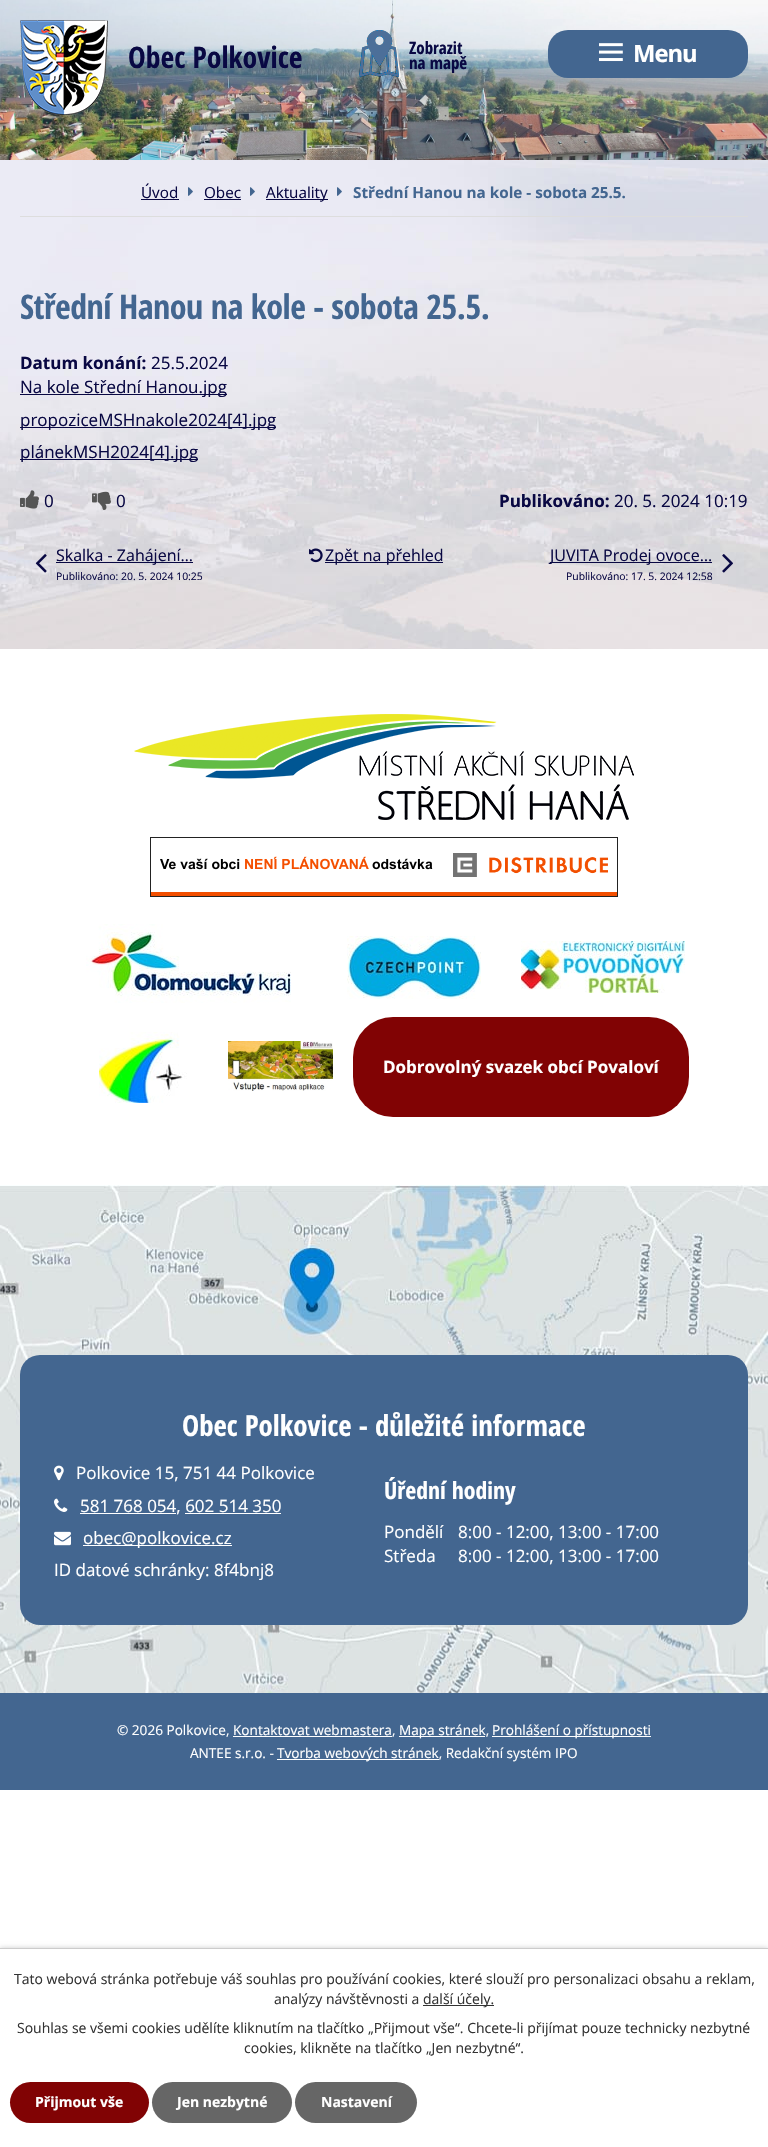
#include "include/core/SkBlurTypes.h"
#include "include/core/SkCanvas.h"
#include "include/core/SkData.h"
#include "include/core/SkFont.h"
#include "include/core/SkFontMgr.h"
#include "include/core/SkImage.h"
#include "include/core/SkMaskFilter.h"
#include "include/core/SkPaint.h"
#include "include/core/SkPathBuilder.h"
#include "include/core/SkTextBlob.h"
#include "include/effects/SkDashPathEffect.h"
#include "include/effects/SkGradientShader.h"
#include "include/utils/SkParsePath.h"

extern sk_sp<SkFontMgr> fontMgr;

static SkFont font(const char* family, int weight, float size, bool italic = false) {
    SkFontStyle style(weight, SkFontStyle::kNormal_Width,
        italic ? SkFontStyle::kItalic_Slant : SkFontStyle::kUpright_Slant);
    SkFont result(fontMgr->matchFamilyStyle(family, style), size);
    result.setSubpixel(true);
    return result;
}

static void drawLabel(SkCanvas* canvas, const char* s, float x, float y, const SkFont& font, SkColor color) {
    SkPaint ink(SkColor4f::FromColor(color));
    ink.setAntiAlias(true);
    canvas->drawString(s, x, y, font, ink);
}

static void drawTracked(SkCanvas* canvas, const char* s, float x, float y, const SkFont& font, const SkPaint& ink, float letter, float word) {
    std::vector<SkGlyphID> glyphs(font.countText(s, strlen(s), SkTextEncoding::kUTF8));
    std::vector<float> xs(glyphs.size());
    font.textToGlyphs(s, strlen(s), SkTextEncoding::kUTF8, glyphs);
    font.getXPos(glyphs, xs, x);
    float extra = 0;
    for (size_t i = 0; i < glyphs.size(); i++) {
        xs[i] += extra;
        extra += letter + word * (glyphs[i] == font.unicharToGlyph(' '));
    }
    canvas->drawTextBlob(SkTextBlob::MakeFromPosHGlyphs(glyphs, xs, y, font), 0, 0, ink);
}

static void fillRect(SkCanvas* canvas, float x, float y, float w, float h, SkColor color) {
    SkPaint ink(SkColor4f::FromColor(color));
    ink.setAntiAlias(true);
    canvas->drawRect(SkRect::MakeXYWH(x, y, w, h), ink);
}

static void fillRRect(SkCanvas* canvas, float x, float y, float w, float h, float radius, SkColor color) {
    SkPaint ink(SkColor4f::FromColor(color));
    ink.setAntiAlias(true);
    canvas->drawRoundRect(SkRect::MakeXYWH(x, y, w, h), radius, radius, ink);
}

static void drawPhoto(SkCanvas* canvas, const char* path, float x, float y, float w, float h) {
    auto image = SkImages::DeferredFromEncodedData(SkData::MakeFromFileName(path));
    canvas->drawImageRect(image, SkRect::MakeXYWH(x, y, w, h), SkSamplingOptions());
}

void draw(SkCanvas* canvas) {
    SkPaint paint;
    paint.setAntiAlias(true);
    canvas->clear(0xFFFFFFFF);
    drawPhoto(canvas, "assets/img1.png", 0, 0, 768, 160);
    drawPhoto(canvas, "assets/img2.png", 20, 20, 88, 95);
    SkFont font1 = font("Open Sans Condensed", 700, 29.75f);
    drawLabel(canvas, "Obec Polkovice", 128, 68, font1, 0xFF090843);
    drawPhoto(canvas, "assets/img3.png", 359, 30, 40, 47);
    SkFont font2 = font("Open Sans Condensed", 700, 17);
    drawLabel(canvas, "Zobrazit", 409, 54, font2, 0xFF090843);
    drawLabel(canvas, "na mapě", 409, 69, font2, 0xFF090843);
    fillRRect(canvas, 548, 30, 200, 48, 20, 0xFF436690);
    drawPhoto(canvas, "assets/img4.png", 599, 43, 24, 19);
    SkFont font3 = font("Open Sans", 700, 23.75f);
    paint.setColor(0xFFFFFFFF);
    drawTracked(canvas, "Menu", 633, 62, font3, paint, -1, 0);
    drawPhoto(canvas, "assets/img5.png", 0, 160, 768, 489);
    fillRect(canvas, 20, 216, 728, 1, 0xFFDDDDDD);
    SkFont font4 = font("Open Sans", 400, 15.25f);
    drawLabel(canvas, "Úvod", 141, 198, font4, 0xFF090843);
    fillRect(canvas, 141, 199, 38, 1, 0xFF090843);
    drawPhoto(canvas, "assets/img6.png", 188, 187, 5, 9);
    drawLabel(canvas, "Obec", 204, 198, font4, 0xFF090843);
    fillRect(canvas, 204, 199, 37, 1, 0xFF090843);
    drawPhoto(canvas, "assets/img7.png", 250, 187, 5, 9);
    fillRect(canvas, 266, 199, 62, 1, 0xFF090843);
    drawLabel(canvas, "Aktuality", 266, 198, font4, 0xFF090843);
    drawPhoto(canvas, "assets/img7.png", 337, 187, 5, 9);
    SkFont font5 = font("Open Sans", 700, 15.25f);
    drawLabel(canvas, "Střední Hanou na kole - sobota 25.5.", 353, 198, font5, 0xFF436690);
    SkFont font6 = font("Open Sans Condensed", 700, 34);
    paint.setColor(0xFF436690);
    drawTracked(canvas, "Střední Hanou na kole - sobota 25.5.", 20, 319, font6, paint, -0.5f, 0);
    SkFont font7 = font("Open Sans", 700, 17);
    drawLabel(canvas, "Datum konání:", 20, 369, font7, 0xFF090843);
    SkFont font8 = font("Open Sans", 400, 17);
    drawLabel(canvas, "25.5.2024", 151, 369, font8, 0xFF090843);
    fillRect(canvas, 20, 394, 207, 1, 0xFF090843);
    drawLabel(canvas, "Na kole Střední Hanou.jpg", 20, 393, font8, 0xFF090843);
    fillRect(canvas, 20, 427, 256, 1, 0xFF090843);
    drawLabel(canvas, "propoziceMSHnakole2024[4].jpg", 20, 426, font8, 0xFF090843);
    fillRect(canvas, 20, 459, 178, 1, 0xFF090843);
    drawLabel(canvas, "plánekMSH2024[4].jpg", 20, 458, font8, 0xFF090843);
    drawPhoto(canvas, "assets/img8.png", 20, 490, 19, 19);
    drawLabel(canvas, "0", 44, 507, font8, 0xFF090843);
    drawPhoto(canvas, "assets/img9.png", 92, 491, 19, 19);
    drawLabel(canvas, "0", 116, 507, font8, 0xFF090843);
    drawLabel(canvas, "Publikováno:", 499, 507, font7, 0xFF090843);
    drawLabel(canvas, "20. 5. 2024 10:19", 614, 507, font8, 0xFF090843);
    drawPhoto(canvas, "assets/img10.png", 35, 554, 12, 19);
    fillRect(canvas, 56, 562, 137, 1, 0xFF090843);
    SkFont font9 = font("Open Sans", 400, 16);
    drawLabel(canvas, "Skalka - Zahájení…", 56, 561, font9, 0xFF090843);
    SkFont font10 = font("Open Sans", 400, 10.4f);
    drawLabel(canvas, "Publikováno: 20. 5. 2024 10:25", 56, 580, font10, 0xFF090843);
    drawPhoto(canvas, "assets/img11.png", 309, 548, 14, 15);
    fillRect(canvas, 325, 562, 118, 1, 0xFF090843);
    drawLabel(canvas, "Zpět na přehled", 325, 561, font9, 0xFF090843);
    fillRect(canvas, 550, 562, 162, 1, 0xFF090843);
    drawLabel(canvas, "JUVITA Prodej ovoce…", 550, 561, font9, 0xFF090843);
    drawLabel(canvas, "Publikováno: 17. 5. 2024 12:58", 566, 580, font10, 0xFF090843);
    drawPhoto(canvas, "assets/img12.png", 722, 554, 11, 19);
    drawPhoto(canvas, "assets/img13.png", 134, 714, 500, 106);
    drawPhoto(canvas, "assets/img14.png", 150, 837, 468, 60);
    drawPhoto(canvas, "assets/img15.png", 86, 924, 205, 79);
    drawPhoto(canvas, "assets/img16.png", 347, 936, 134, 63);
    drawPhoto(canvas, "assets/img17.png", 521, 941, 164, 52);
    drawPhoto(canvas, "assets/img18.png", 99, 1032, 88, 71);
    drawPhoto(canvas, "assets/img19.png", 228, 1041, 105, 50);
    fillRRect(canvas, 353, 1017, 336, 100, 40, 0xFF810304);
    drawLabel(canvas, "Dobrovolný svazek obcí Povaloví", 383, 1073, font7, 0xFFFFFFFF);
    drawPhoto(canvas, "assets/img20.png", 0, 1185, 768, 508);
    fillRRect(canvas, 20, 1355, 728, 270, 20, 0xFF436690);
    SkFont font11 = font("Open Sans Condensed", 700, 28.9f);
    drawLabel(canvas, "Obec Polkovice - důležité informace", 182, 1436, font11, 0xFFFFFFFF);
    drawPhoto(canvas, "assets/img21.png", 54, 1465, 10, 16);
    drawLabel(canvas, "Polkovice 15, 751 44 Polkovice", 76, 1479, font8, 0xFFFFFFFF);
    drawPhoto(canvas, "assets/img22.png", 54, 1498, 14, 14);
    fillRect(canvas, 80, 1513, 96, 1, 0xFFFFFFFF);
    drawLabel(canvas, "581 768 054, 602 514 350", 80, 1512, font8, 0xFFFFFFFF);
    fillRect(canvas, 185, 1513, 96, 1, 0xFFFFFFFF);
    drawPhoto(canvas, "assets/img23.png", 54, 1531, 17, 15);
    fillRect(canvas, 83, 1545, 149, 1, 0xFFFFFFFF);
    drawLabel(canvas, "obec@polkovice.cz", 83, 1544, font8, 0xFFFFFFFF);
    drawLabel(canvas, "ID datové schránky: 8f4bnj8", 54, 1576, font8, 0xFFFFFFFF);
    SkFont font12 = font("Open Sans Condensed", 700, 23.75f);
    drawLabel(canvas, "Úřední hodiny", 384, 1499, font12, 0xFFFFFFFF);
    drawLabel(canvas, "Pondělí", 384, 1538, font8, 0xFFFFFFFF);
    drawLabel(canvas, "8:00 - 12:00, 13:00 - 17:00", 458, 1538, font8, 0xFFFFFFFF);
    drawLabel(canvas, "Středa", 384, 1562, font8, 0xFFFFFFFF);
    drawLabel(canvas, "8:00 - 12:00, 13:00 - 17:00", 458, 1562, font8, 0xFFFFFFFF);
    fillRect(canvas, 0, 1693, 768, 97, 0xFF436690);
    SkFont font13 = font("Open Sans", 400, 13.6f);
    drawLabel(canvas, "© 2026 Polkovice, Kontaktovat webmastera,", 117, 1735, font13, 0xFFFFFFFF);
    fillRect(canvas, 399, 1736, 86, 1, 0xFFFFFFFF);
    drawLabel(canvas, "Mapa stránek,", 399, 1735, font13, 0xFFFFFFFF);
    fillRect(canvas, 492, 1736, 159, 1, 0xFFFFFFFF);
    drawLabel(canvas, "Prohlášení o přístupnosti", 492, 1735, font13, 0xFFFFFFFF);
    fillRect(canvas, 233, 1736, 159, 1, 0xFFFFFFFF);
    drawLabel(canvas, "ANTEE s.r.o. -", 190, 1758, font13, 0xFFFFFFFF);
    fillRect(canvas, 277, 1759, 162, 1, 0xFFFFFFFF);
    drawLabel(canvas, "Tvorba webových stránek, Redakční systém IPO", 277, 1758, font13, 0xFFFFFFFF);
    paint.setColor(0x33000000);
    paint.setMaskFilter(SkMaskFilter::MakeBlur(kNormal_SkBlurStyle, 2.5f));
    canvas->drawRect(SkRect::MakeXYWH(0, 1948, 768, 199), paint);
    paint.setMaskFilter(nullptr);
    fillRect(canvas, 0, 1949, 768, 198, 0xFFFFFFFF);
    fillRect(canvas, 0, 1948, 768, 1, 0xFFCCCCCC);
    SkFont font14 = font("Open Sans", 400, 14);
    drawLabel(canvas, "Tato webová stránka potřebuje váš souhlas pro používání cookies, které slouží pro personalizaci obsahu a reklam,", 14, 1984, font14, 0xFF333333);
    drawLabel(canvas, "analýzy návštěvnosti a", 274, 2004, font14, 0xFF333333);
    fillRect(canvas, 423, 2005, 71, 1, 0xFF333333);
    drawLabel(canvas, "další účely.", 423, 2004, font14, 0xFF333333);
    drawLabel(canvas, "Souhlas se všemi cookies udělíte kliknutím na tlačítko „Přijmout vše“. Chcete-li přijímat pouze technicky nezbytné", 17, 2033, font14, 0xFF333333);
    drawLabel(canvas, "cookies, klikněte na tlačítko „Jen nezbytné“.", 244, 2053, font14, 0xFF333333);
    fillRRect(canvas, 10, 2082, 139, 41, 20.5f, 0xFF810304);
    SkFont font15 = font("Open Sans", 700, 14);
    drawLabel(canvas, "Přijmout vše", 35, 2107, font15, 0xFFFFFFFF);
    fillRRect(canvas, 152, 2082, 140, 41, 20.5f, 0xFF666666);
    drawLabel(canvas, "Jen nezbytné", 177, 2107, font15, 0xFFFFFFFF);
    fillRRect(canvas, 295, 2082, 122, 41, 20.5f, 0xFF666666);
    drawLabel(canvas, "Nastavení", 321, 2107, font15, 0xFFFFFFFF);
}
